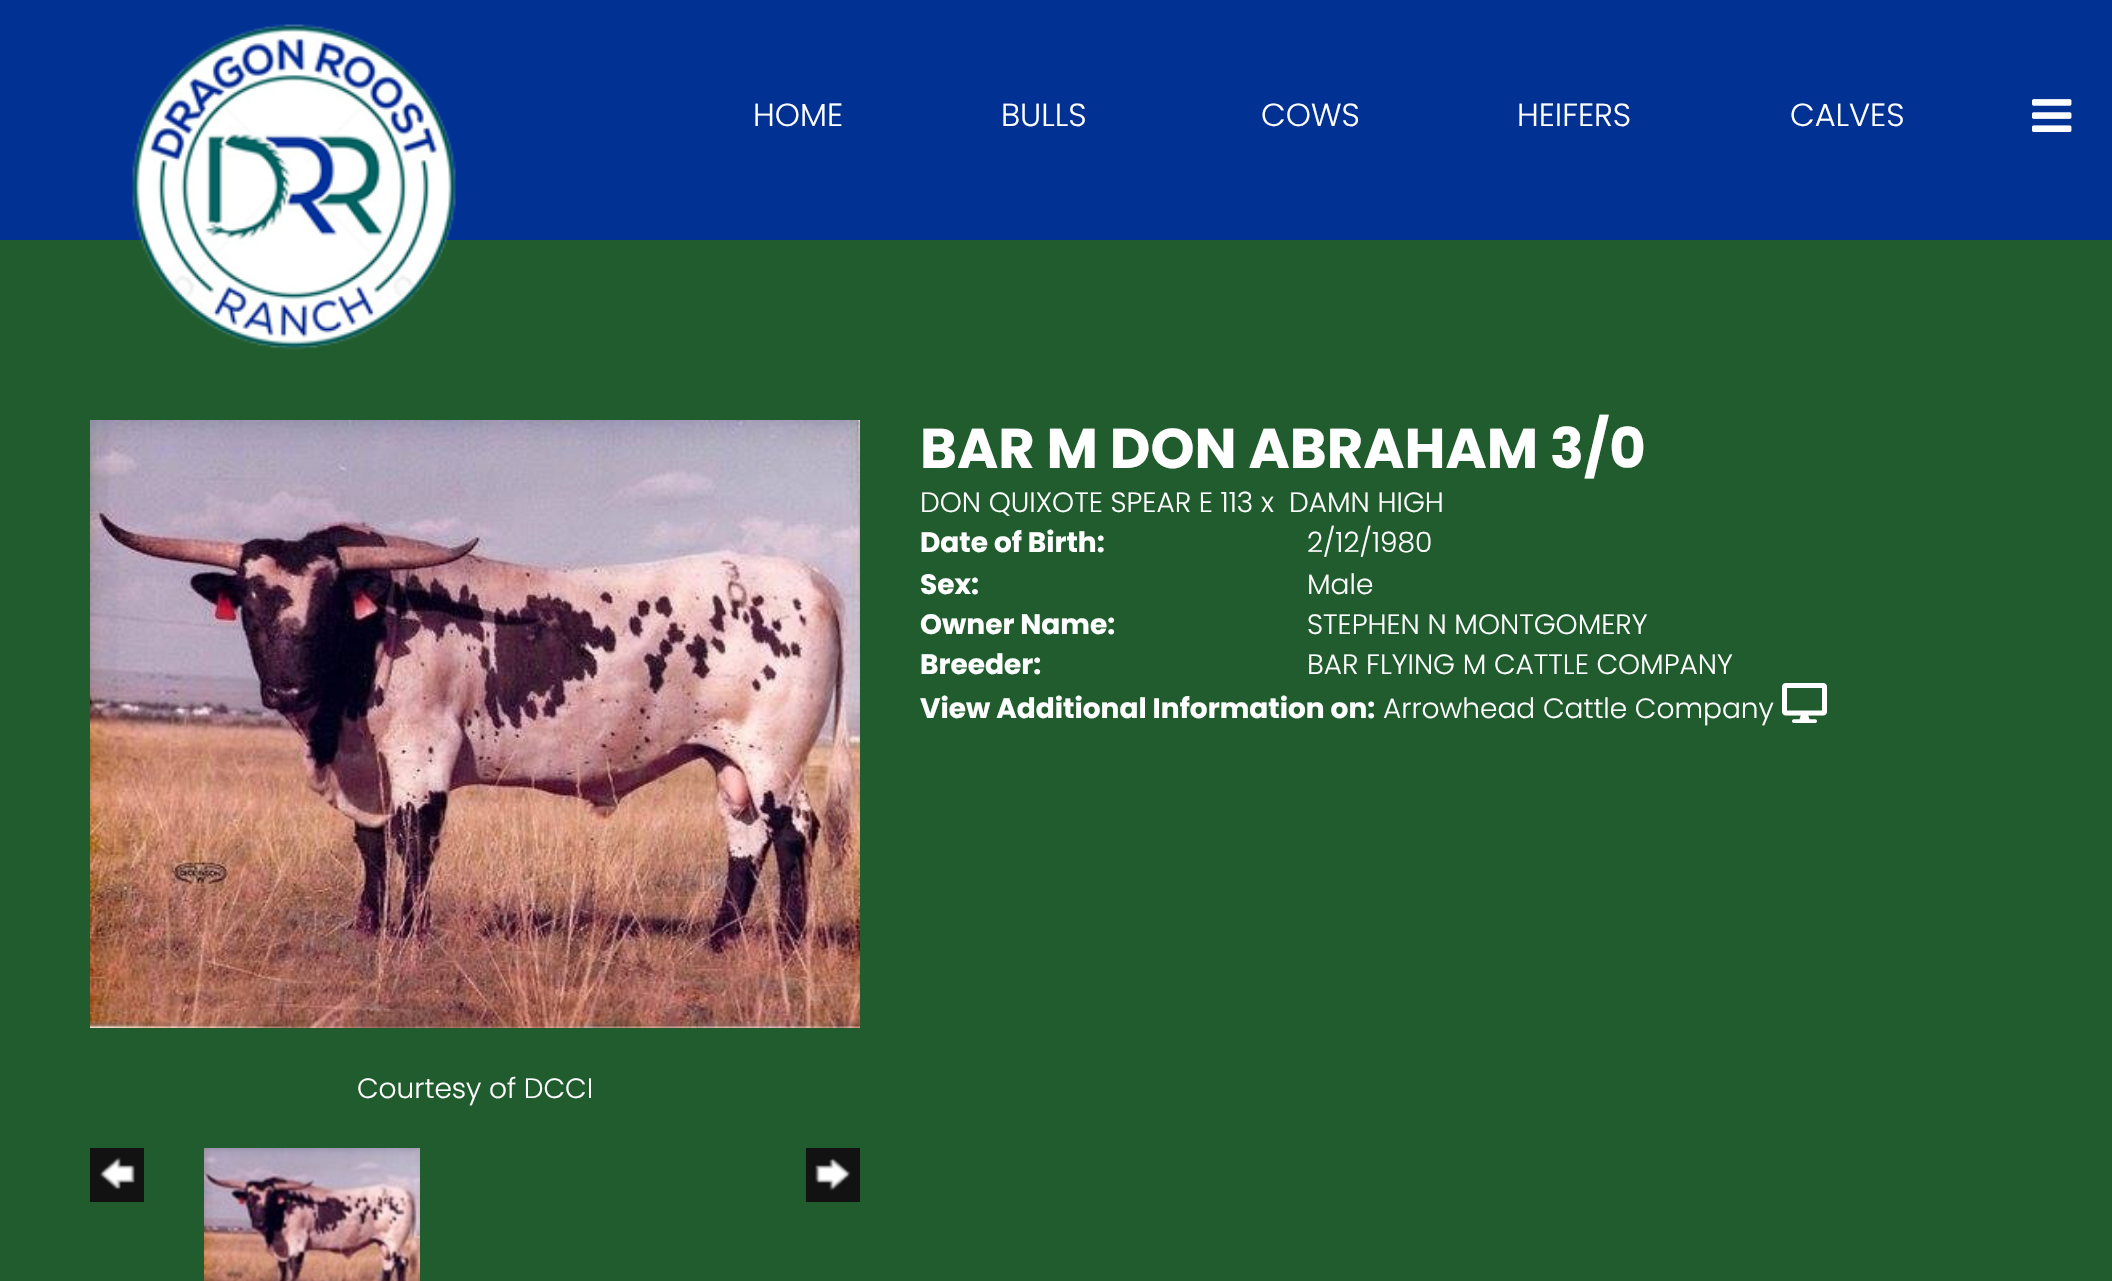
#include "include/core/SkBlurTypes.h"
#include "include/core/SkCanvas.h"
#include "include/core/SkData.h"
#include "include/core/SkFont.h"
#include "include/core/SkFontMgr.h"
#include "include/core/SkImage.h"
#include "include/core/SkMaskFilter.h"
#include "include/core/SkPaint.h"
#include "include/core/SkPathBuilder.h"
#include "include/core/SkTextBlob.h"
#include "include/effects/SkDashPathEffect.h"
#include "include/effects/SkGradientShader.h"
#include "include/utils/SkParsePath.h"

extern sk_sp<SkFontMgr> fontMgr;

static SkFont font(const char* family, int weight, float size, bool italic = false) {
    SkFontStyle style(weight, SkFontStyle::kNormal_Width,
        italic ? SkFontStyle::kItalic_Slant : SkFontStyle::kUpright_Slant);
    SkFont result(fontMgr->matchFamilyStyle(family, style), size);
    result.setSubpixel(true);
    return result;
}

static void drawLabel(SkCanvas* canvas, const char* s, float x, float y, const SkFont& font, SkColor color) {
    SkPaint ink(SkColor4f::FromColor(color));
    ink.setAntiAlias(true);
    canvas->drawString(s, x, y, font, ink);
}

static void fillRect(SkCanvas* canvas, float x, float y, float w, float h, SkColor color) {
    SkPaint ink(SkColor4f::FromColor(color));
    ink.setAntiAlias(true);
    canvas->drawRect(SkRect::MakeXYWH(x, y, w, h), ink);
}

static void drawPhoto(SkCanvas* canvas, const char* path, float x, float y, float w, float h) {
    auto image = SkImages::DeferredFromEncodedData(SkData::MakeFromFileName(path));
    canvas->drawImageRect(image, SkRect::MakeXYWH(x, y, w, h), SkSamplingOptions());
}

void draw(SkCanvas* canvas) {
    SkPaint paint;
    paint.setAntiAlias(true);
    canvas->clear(0xFF215C2E);
    fillRect(canvas, 0, 0, 2112, 240, 0xFF023194);
    drawPhoto(canvas, "assets/img1.png", 132, 24, 324, 326);
    SkFont font1 = font("Poppins", 300, 32);
    drawLabel(canvas, "HOME", 753, 126, font1, 0xFFFFFFFF);
    drawLabel(canvas, "BULLS", 1001, 126, font1, 0xFFFFFFFF);
    drawLabel(canvas, "COWS", 1261, 126, font1, 0xFFFFFFFF);
    drawLabel(canvas, "HEIFERS", 1517, 126, font1, 0xFFFFFFFF);
    drawLabel(canvas, "CALVES", 1790, 126, font1, 0xFFFFFFFF);
    drawPhoto(canvas, "assets/img2.png", 2032, 99, 40, 33);
    SkFont font2 = font("Poppins", 700, 56);
    drawLabel(canvas, "BAR M DON ABRAHAM 3/0", 920, 468, font2, 0xFFFFFFFF);
    SkFont font3 = font("Poppins", 300, 28);
    drawLabel(canvas, "DON QUIXOTE SPEAR E 113 x", 920, 512, font3, 0xFFFFFFFF);
    drawLabel(canvas, "DAMN HIGH", 1289, 512, font3, 0xFFFFFFFF);
    SkFont font4 = font("Poppins", 700, 28);
    drawLabel(canvas, "Date of Birth:", 920, 552, font4, 0xFFFFFFFF);
    drawLabel(canvas, "2/12/1980", 1307, 552, font3, 0xFFFFFFFF);
    drawLabel(canvas, "Sex:", 920, 594, font4, 0xFFFFFFFF);
    drawLabel(canvas, "Male", 1307, 594, font3, 0xFFFFFFFF);
    drawLabel(canvas, "Owner Name:", 920, 634, font4, 0xFFFFFFFF);
    drawLabel(canvas, "STEPHEN N MONTGOMERY", 1307, 634, font3, 0xFFFFFFFF);
    drawLabel(canvas, "Breeder:", 920, 674, font4, 0xFFFFFFFF);
    drawLabel(canvas, "BAR FLYING M CATTLE COMPANY", 1307, 674, font3, 0xFFFFFFFF);
    drawLabel(canvas, "View Additional Information on:", 920, 718, font4, 0xFFFFFFFF);
    drawLabel(canvas, "Arrowhead Cattle Company", 1383, 718, font3, 0xFFFFFFFF);
    drawPhoto(canvas, "assets/img3.png", 1782, 683, 45, 40);
    drawPhoto(canvas, "assets/img4.png", 90, 420, 770, 608);
    drawLabel(canvas, "Courtesy of DCCI", 357, 1098, font3, 0xFFFFFFFF);
    drawPhoto(canvas, "assets/img5.png", 90, 1148, 54, 54);
    drawPhoto(canvas, "assets/img6.png", 204, 1148, 216, 133);
    drawPhoto(canvas, "assets/img7.png", 806, 1148, 54, 54);
}
